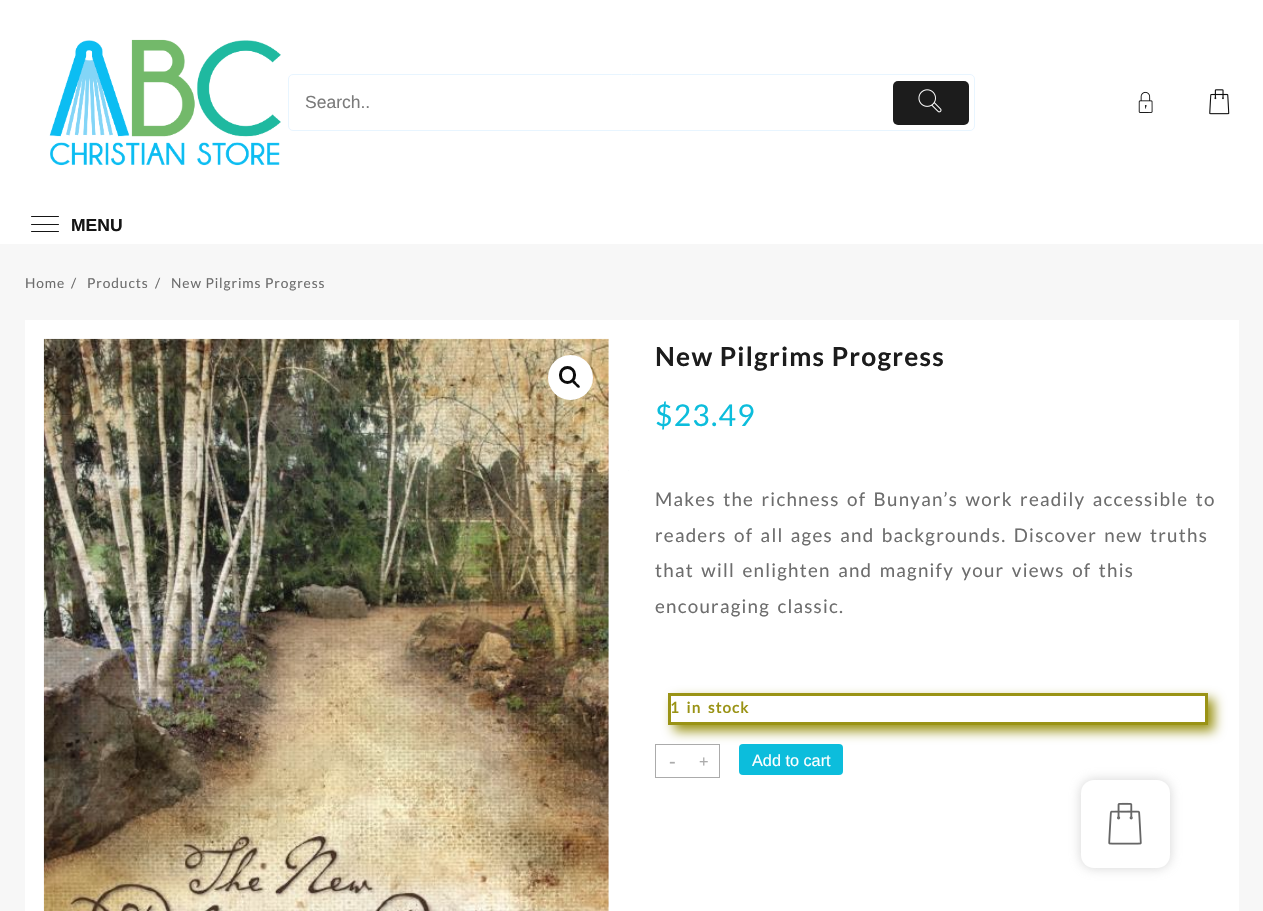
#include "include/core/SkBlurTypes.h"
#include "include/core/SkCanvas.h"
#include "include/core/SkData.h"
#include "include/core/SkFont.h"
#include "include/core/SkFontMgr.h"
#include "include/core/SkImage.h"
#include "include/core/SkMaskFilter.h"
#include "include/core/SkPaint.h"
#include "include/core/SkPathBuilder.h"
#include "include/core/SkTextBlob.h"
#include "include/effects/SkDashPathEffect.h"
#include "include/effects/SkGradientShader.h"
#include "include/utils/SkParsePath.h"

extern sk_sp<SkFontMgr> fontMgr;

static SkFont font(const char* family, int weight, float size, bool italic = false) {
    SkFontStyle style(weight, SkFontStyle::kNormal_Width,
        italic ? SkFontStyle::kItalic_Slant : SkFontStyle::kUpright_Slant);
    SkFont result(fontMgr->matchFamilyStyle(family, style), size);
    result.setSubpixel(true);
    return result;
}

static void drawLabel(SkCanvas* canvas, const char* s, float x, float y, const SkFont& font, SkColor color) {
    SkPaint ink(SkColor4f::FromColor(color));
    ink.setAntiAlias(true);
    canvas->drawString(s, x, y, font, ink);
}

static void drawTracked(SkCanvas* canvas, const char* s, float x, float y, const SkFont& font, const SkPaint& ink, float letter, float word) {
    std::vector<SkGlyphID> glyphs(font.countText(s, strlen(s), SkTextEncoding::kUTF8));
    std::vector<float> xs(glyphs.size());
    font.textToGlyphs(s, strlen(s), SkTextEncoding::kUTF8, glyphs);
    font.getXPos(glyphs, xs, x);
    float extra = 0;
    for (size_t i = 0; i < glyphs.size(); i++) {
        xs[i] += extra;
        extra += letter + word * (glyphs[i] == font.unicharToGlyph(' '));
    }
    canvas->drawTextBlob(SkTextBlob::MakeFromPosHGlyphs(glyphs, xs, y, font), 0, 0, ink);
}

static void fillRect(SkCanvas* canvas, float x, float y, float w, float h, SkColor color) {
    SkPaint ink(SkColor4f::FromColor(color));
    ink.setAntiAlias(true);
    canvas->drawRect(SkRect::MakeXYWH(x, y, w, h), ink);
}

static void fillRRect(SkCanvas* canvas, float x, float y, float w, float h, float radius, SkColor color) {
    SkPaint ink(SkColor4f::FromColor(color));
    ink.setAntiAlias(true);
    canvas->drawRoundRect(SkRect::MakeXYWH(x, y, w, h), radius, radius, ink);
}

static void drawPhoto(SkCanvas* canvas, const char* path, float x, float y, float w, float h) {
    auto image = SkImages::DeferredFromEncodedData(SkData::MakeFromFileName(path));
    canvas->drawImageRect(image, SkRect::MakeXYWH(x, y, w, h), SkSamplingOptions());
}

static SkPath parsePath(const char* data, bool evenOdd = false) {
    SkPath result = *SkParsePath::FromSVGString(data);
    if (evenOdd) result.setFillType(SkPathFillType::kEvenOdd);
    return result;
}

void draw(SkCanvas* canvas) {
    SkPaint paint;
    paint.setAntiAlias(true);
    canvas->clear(0xFFF7F7F7);
    fillRect(canvas, 0, 0, 1263, 244, 0xFFFFFFFF);
    drawPhoto(canvas, "assets/img1.png", 49, 39, 232, 127);
    paint.setStroke(true);
    paint.setStrokeWidth(1);
    paint.setColor(0xFFE8F5FF);
    canvas->drawRoundRect(SkRect::MakeXYWH(288.5f, 74.5f, 686, 56), 4.5f, 4.5f, paint);
    SkFont font1 = font("Liberation Sans", 400, 17.5f);
    drawLabel(canvas, "Search..", 305, 108, font1, 0xFF7B7B7B);
    fillRRect(canvas, 893, 81, 76, 44, 5, 0xFF1C1C1C);
    drawPhoto(canvas, "assets/img2.png", 918, 89, 24, 24);
    drawPhoto(canvas, "assets/img3.png", 1138, 91, 15, 22);
    drawPhoto(canvas, "assets/img4.png", 1209, 89, 21, 26);
    fillRRect(canvas, 31, 216, 28, 1, 0.5f, 0xFF151515);
    fillRRect(canvas, 31, 224, 28, 1, 0.5f, 0xFF151515);
    fillRRect(canvas, 31, 231, 28, 1, 0.5f, 0xFF151515);
    SkFont font2 = font("Liberation Sans", 700, 17.5f);
    drawLabel(canvas, "MENU", 71, 231, font2, 0xFF151515);
    SkFont font3 = font("Lato", 400, 13.75f);
    paint.setStroke(false);
    paint.setColor(0xFF6D6D6D);
    drawTracked(canvas, "Home", 25, 288, font3, paint, 0.9f, 0);
    drawTracked(canvas, "/", 71, 288, font3, paint, 0.9f, 0);
    drawTracked(canvas, "Products", 87, 288, font3, paint, 0.9f, 0);
    drawTracked(canvas, "/", 155, 288, font3, paint, 0.9f, 0);
    drawTracked(canvas, "New Pilgrims Progress", 171, 288, font3, paint, 0.9f, 0);
    fillRect(canvas, 25, 320, 1214, 591, 0xFFFFFFFF);
    drawPhoto(canvas, "assets/img5.png", 43, 338, 566, 573);
    paint.setColor(0xFFFFFFFF);
    canvas->drawCircle(570.5f, 377.5f, 22.5f, paint);
    paint.setStroke(true);
    paint.setStrokeWidth(3);
    paint.setColor(0xFF0C0C0C);
    canvas->drawRoundRect(SkRect::MakeXYWH(560.5f, 367.5f, 14, 15), 7, 7, paint);
    paint.setStroke(false);
    canvas->drawPath(parsePath("M572.5 380.5C573.5 379 576 382 576.5 383C577.5 384 581 386 579.5 387.5C578 389 575.5 385.5 575 385C574 384 571 382 572.5 380.5Z"), paint);
    SkFont font4 = font("Lato", 700, 26.25f);
    paint.setColor(0xFF1C1C1C);
    drawTracked(canvas, "New Pilgrims Progress", 655, 366, font4, paint, 1.25f, 0);
    SkFont font5 = font("Lato", 400, 30);
    paint.setColor(0xFF0CBDDC);
    drawTracked(canvas, "$23.49", 655, 426, font5, paint, 1.25f, 0);
    SkFont font6 = font("Lato", 400, 18.75f);
    paint.setColor(0xFF6D6D6D);
    drawTracked(canvas, "Makes the richness of Bunyan’s work readily accessible to", 655, 506, font6, paint, 1.25f, 2.5f);
    drawTracked(canvas, "readers of all ages and backgrounds. Discover new truths", 655, 542, font6, paint, 1.25f, 2.5f);
    drawTracked(canvas, "that will enlighten and magnify your views of this", 655, 577, font6, paint, 1.25f, 2.5f);
    drawTracked(canvas, "encouraging classic.", 655, 613, font6, paint, 1.25f, 2.5f);
    canvas->save();
    canvas->clipPath(parsePath("M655 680H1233V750H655ZM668 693H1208V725H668Z", true), true);
    paint.setColor(0xFF9A9315);
    paint.setMaskFilter(SkMaskFilter::MakeBlur(kNormal_SkBlurStyle, 6));
    canvas->drawRect(SkRect::MakeXYWH(674, 699, 540, 32), paint);
    paint.setMaskFilter(nullptr);
    canvas->restore();
    paint.setStroke(true);
    canvas->drawRect(SkRect::MakeXYWH(669.5f, 694.5f, 537, 29), paint);
    SkFont font7 = font("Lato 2", 700, 15);
    paint.setStroke(false);
    drawTracked(canvas, "1 in stock", 670, 713, font7, paint, 1.25f, 2.5f);
    paint.setStroke(true);
    paint.setStrokeWidth(1);
    paint.setColor(0xFFABABAB);
    canvas->drawRect(SkRect::MakeXYWH(655.5f, 744.5f, 64, 33), paint);
    SkFont font8 = font("Liberation Sans", 400, 20);
    drawLabel(canvas, "-", 669, 768, font8, 0xFFABABAB);
    SkFont font9 = font("Liberation Sans", 400, 16.25f);
    drawLabel(canvas, "+", 699, 767, font9, 0xFFABABAB);
    fillRRect(canvas, 739, 744, 104, 31, 4, 0xFF0CBDDC);
    drawLabel(canvas, "Add to cart", 752, 766, font9, 0xFFFFFFFF);
    fillRect(canvas, 628, 470, 1, 1, 0xFFFAFBFC);
    paint.setStroke(false);
    paint.setColor(0x99B7B7B7);
    paint.setMaskFilter(SkMaskFilter::MakeBlur(kNormal_SkBlurStyle, 6));
    canvas->drawRoundRect(SkRect::MakeXYWH(1081, 780, 89, 88), 13, 13, paint);
    paint.setMaskFilter(nullptr);
    fillRRect(canvas, 1081, 780, 89, 88, 13, 0xFFFFFFFF);
    drawPhoto(canvas, "assets/img6.png", 1108, 802, 34, 43);
}
